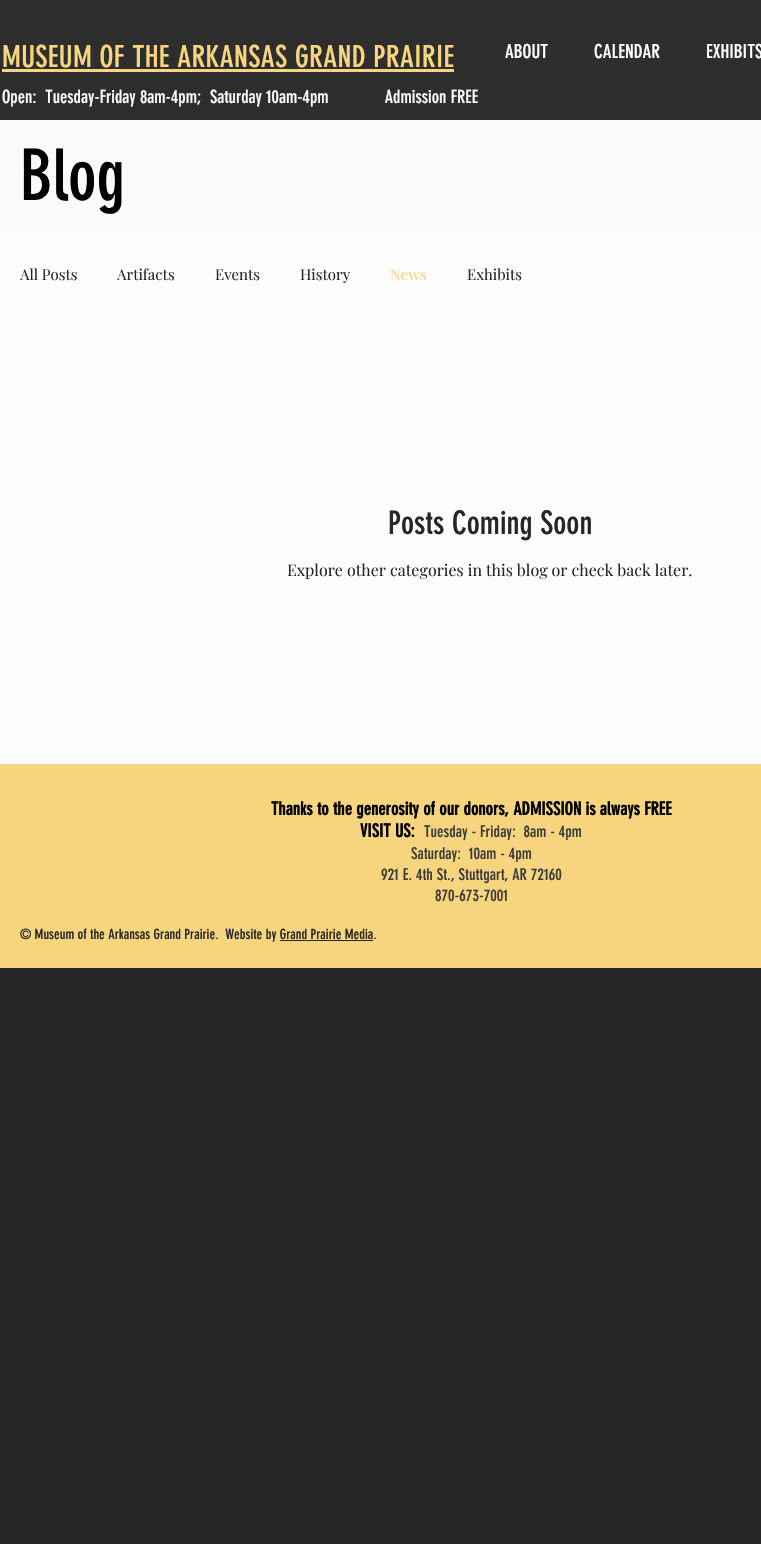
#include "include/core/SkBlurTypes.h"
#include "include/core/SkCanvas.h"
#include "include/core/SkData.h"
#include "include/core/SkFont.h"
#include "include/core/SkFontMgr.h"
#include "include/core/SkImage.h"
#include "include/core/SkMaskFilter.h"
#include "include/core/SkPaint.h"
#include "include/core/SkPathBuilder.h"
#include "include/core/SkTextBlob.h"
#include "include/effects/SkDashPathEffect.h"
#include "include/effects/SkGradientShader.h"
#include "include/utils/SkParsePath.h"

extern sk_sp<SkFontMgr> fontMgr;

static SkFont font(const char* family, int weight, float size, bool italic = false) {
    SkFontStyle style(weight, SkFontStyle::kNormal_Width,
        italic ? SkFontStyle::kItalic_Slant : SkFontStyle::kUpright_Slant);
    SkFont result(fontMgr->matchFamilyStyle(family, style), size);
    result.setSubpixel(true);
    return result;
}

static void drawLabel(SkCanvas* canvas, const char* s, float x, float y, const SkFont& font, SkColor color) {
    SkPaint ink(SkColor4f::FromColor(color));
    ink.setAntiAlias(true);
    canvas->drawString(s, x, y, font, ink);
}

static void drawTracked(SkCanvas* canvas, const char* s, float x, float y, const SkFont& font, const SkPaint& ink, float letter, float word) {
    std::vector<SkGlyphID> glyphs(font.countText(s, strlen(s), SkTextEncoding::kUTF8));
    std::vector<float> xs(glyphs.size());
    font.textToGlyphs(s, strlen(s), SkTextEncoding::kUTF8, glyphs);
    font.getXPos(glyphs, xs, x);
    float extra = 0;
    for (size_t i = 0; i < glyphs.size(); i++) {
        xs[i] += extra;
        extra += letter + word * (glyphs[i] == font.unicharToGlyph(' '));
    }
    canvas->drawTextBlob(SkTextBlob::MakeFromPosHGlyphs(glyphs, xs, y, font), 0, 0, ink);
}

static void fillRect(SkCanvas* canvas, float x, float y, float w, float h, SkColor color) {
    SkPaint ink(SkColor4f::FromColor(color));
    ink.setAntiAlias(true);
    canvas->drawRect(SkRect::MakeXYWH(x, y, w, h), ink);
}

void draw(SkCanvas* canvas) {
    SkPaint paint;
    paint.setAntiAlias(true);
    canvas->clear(0xFF262626);
    fillRect(canvas, 0, 0, 761, 120, 0xFF2F2E2E);
    SkFont font1 = font("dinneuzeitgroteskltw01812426", 400, 30);
    paint.setColor(0xFFF7D57F);
    drawTracked(canvas, "MUSEUM OF THE ARKANSAS GRAND PRAIRIE", 2, 67, font1, paint, 0.3f, 0);
    fillRect(canvas, 2, 69, 452, 3, 0xFFF7D57F);
    SkFont font2 = font("dinneuzeitgroteskltw01812426", 400, 18);
    drawLabel(canvas, "Open:  Tuesday-Friday 8am-4pm;  Saturday 10am-4pm             Admission FREE", 2, 103, font2, 0xFFFCFCFC);
    SkFont font3 = font("dinneuzeitgroteskltw01812426", 400, 19);
    drawLabel(canvas, "ABOUT", 505, 58, font3, 0xFFFCFCFC);
    drawLabel(canvas, "CALENDAR", 594, 58, font3, 0xFFFCFCFC);
    drawLabel(canvas, "EXHIBITS", 706, 58, font3, 0xFFFCFCFC);
    fillRect(canvas, 0, 120, 761, 114, 0xFFFAFAFA);
    SkFont font4 = font("dinneuzeitgroteskltw01812426", 400, 70);
    drawLabel(canvas, "Blog", 20, 200, font4, 0xFF000000);
    fillRect(canvas, 0, 234, 761, 530, 0xFFFCFCFC);
    SkFont font5 = font("Playfair Display", 400, 15);
    drawLabel(canvas, "All Posts", 20, 280, font5, 0xFF262626);
    drawLabel(canvas, "Artifacts", 117, 280, font5, 0xFF262626);
    drawLabel(canvas, "Events", 215, 280, font5, 0xFF262626);
    drawLabel(canvas, "History", 300, 280, font5, 0xFF262626);
    drawLabel(canvas, "News", 390, 280, font5, 0xFFF7D57F);
    drawLabel(canvas, "Exhibits", 467, 280, font5, 0xFF262626);
    SkFont font6 = font("dinneuzeitgroteskltw01812426", 400, 32);
    drawLabel(canvas, "Posts Coming Soon", 388, 534, font6, 0xFF262626);
    SkFont font7 = font("Playfair Display", 400, 16);
    drawLabel(canvas, "Explore other categories in this blog or check back later.", 287, 576, font7, 0xFF262626);
    fillRect(canvas, 0, 764, 761, 204, 0xFFF7D57F);
    SkFont font8 = font("dinneuzeitgroteskltw01812426", 700, 18);
    drawLabel(canvas, "Thanks to the generosity of our donors, ADMISSION is always FREE", 271, 815, font8, 0xFF000000);
    drawLabel(canvas, "VISIT US:", 360, 837, font8, 0xFF000000);
    SkFont font9 = font("dinneuzeitgroteskltw01812426", 400, 16);
    drawLabel(canvas, "Tuesday - Friday:  8am - 4pm", 424, 837, font9, 0xFF3B3B3B);
    drawLabel(canvas, "Saturday:  10am - 4pm", 411, 859, font9, 0xFF3B3B3B);
    drawLabel(canvas, "921 E. 4th St., Stuttgart, AR 72160", 381, 880, font9, 0xFF3B3B3B);
    drawLabel(canvas, "870-673-7001", 435, 901, font9, 0xFF3B3B3B);
    SkFont font10 = font("dinneuzeitgroteskltw01812426", 400, 14);
    drawLabel(canvas, "© Museum of the Arkansas Grand Prairie.  Website by Grand Prairie Media.", 20, 939, font10, 0xFF262626);
    fillRect(canvas, 280, 940, 93, 1, 0xFF262626);
}
